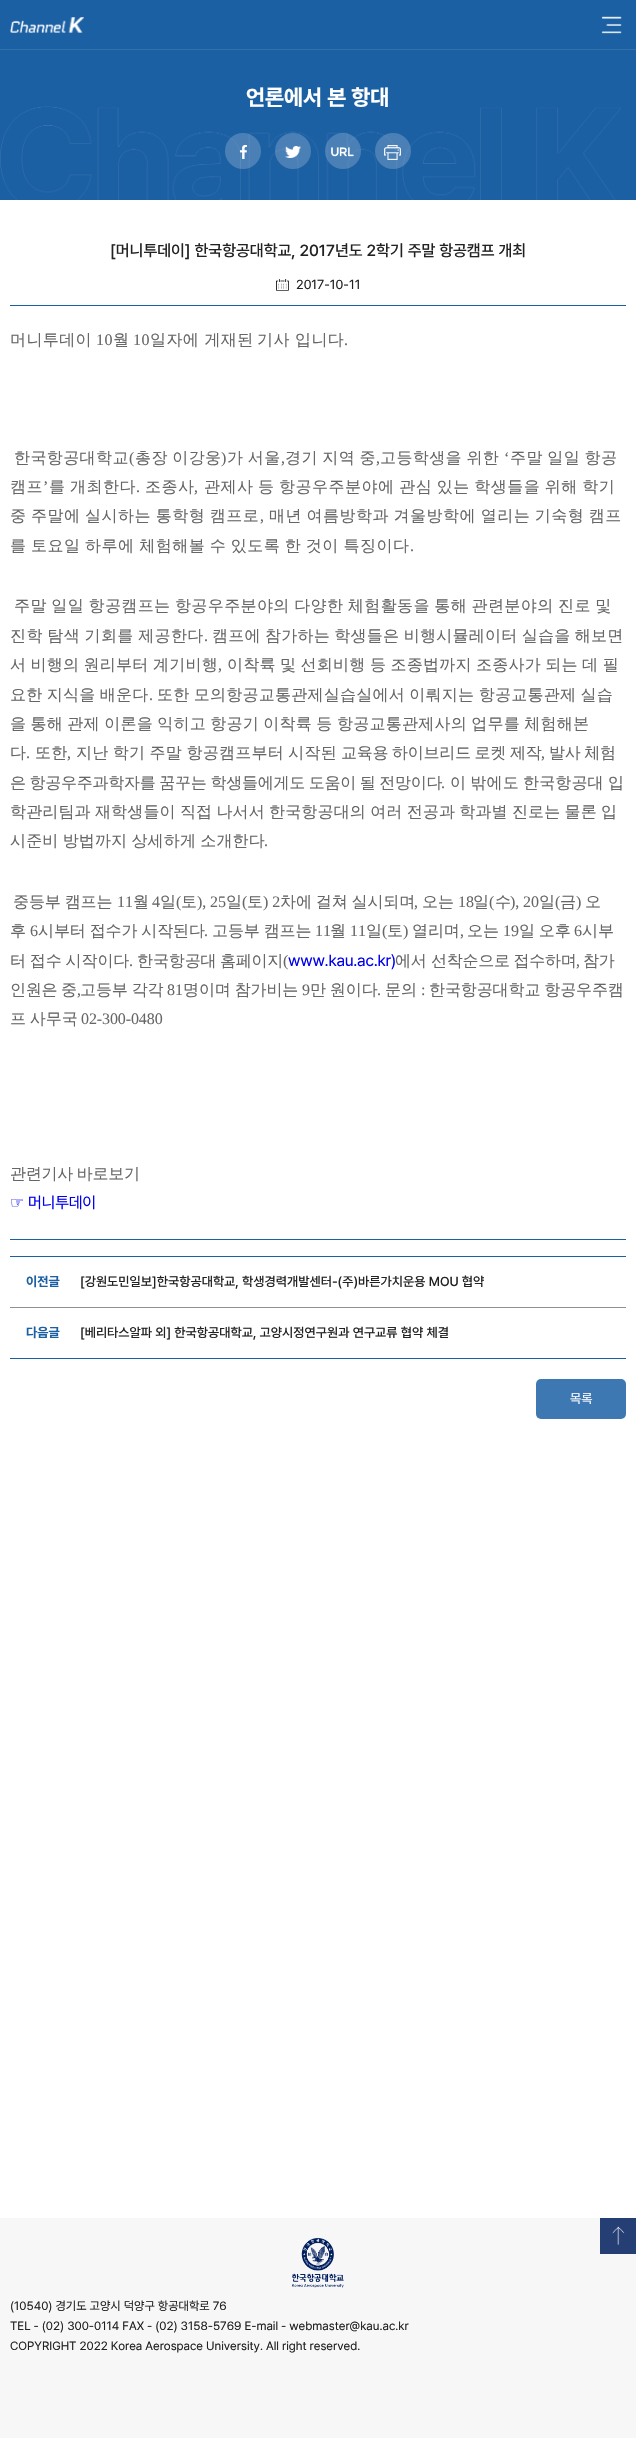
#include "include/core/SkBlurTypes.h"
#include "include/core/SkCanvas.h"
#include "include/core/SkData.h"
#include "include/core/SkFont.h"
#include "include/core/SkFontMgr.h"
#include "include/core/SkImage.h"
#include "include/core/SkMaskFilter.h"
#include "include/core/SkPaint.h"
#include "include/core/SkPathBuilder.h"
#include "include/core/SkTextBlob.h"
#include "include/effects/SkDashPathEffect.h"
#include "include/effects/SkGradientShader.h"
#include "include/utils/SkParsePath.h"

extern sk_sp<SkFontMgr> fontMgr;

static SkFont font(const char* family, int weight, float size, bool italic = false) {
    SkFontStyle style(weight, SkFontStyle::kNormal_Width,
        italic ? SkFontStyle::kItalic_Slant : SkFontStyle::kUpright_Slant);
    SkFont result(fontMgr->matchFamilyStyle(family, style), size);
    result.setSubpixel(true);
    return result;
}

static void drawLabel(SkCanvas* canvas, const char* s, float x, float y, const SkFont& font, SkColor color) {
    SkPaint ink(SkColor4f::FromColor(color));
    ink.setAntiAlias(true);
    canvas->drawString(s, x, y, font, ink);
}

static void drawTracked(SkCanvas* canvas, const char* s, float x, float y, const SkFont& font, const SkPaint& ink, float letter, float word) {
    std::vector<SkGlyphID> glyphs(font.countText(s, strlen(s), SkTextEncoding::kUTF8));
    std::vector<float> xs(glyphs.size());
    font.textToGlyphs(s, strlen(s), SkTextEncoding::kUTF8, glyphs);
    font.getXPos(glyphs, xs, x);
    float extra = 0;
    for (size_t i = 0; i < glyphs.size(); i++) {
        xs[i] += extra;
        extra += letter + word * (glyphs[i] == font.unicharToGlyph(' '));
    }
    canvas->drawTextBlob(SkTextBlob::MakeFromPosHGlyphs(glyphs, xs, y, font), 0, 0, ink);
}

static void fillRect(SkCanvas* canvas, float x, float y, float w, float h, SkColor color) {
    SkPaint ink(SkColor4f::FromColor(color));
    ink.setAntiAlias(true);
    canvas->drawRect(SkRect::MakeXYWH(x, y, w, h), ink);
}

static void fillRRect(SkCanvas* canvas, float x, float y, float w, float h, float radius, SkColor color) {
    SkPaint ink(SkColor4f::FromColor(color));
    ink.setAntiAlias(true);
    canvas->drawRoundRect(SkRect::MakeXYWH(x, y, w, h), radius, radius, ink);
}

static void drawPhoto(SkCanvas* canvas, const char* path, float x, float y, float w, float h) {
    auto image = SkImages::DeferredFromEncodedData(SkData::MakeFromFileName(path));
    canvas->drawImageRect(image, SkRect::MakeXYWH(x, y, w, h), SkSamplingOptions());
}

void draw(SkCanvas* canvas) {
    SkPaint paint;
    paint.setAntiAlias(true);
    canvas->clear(0xFFFFFFFF);
    fillRect(canvas, 0, 0, 636, 49, 0xFF1C60A4);
    fillRect(canvas, 0, 49, 636, 1, 0xFF3370AD);
    drawPhoto(canvas, "assets/img1.png", 10, 17, 74, 16);
    drawPhoto(canvas, "assets/img2.png", 601, 16, 21, 18);
    drawPhoto(canvas, "assets/img3.png", 0, 50, 636, 150);
    SkFont font1 = font("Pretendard", 700, 22);
    drawLabel(canvas, "언론에서 본 항대", 246, 105, font1, 0xFFFFFFFF);
    paint.setColor(0x33FFFFFF);
    canvas->drawCircle(243, 151, 18, paint);
    drawPhoto(canvas, "assets/img4.png", 240, 145, 7, 14);
    canvas->drawCircle(293, 151, 18, paint);
    drawPhoto(canvas, "assets/img5.png", 285, 146, 16, 12);
    canvas->drawCircle(343, 151, 18, paint);
    drawPhoto(canvas, "assets/img6.png", 331, 147, 23, 10);
    canvas->drawCircle(393, 151, 18, paint);
    drawPhoto(canvas, "assets/img7.png", 384, 145, 17, 15);
    fillRect(canvas, 10, 1239, 616, 1, 0xFF1C60A4);
    fillRect(canvas, 10, 305, 616, 1, 0xFF1C60A4);
    SkFont font2 = font("Pretendard", 500, 16);
    drawLabel(canvas, "[머니투데이] 한국항공대학교, 2017년도 2학기 주말 항공캠프 개최", 110, 256, font2, 0xFF222222);
    drawPhoto(canvas, "assets/img8.png", 276, 279, 13, 12);
    SkFont font3 = font("Pretendard", 400, 13);
    drawLabel(canvas, "2017-10-11", 296, 289, font3, 0xFF222222);
    SkFont font4 = font("WenQuanYi Zen Hei", 500, 16);
    paint.setColor(0xFF666666);
    drawTracked(canvas, "머니투데이", 10, 345, font4, paint, 0.4f, 0);
    SkFont font5 = font("Liberation Serif", 400, 16);
    drawTracked(canvas, "10", 96, 345, font5, paint, 0.4f, 0);
    drawTracked(canvas, "월", 113, 345, font4, paint, 0.4f, 0);
    drawTracked(canvas, "10", 133, 345, font5, paint, 0.4f, 0);
    drawTracked(canvas, "일자에 게재된", 150, 345, font4, paint, 0.4f, 0);
    drawTracked(canvas, "기사 입니다", 257, 345, font4, paint, 0.4f, 0);
    drawTracked(canvas, ".", 344, 345, font5, paint, 0.4f, 0);
    drawTracked(canvas, "한국항공대학교", 14, 463, font4, paint, 0.4f, 0);
    drawTracked(canvas, "(", 129, 463, font5, paint, 0.4f, 0);
    drawTracked(canvas, "총장 이강웅", 135, 463, font4, paint, 0.4f, -0.75f);
    drawTracked(canvas, ")", 221, 463, font5, paint, 0.4f, 0);
    drawTracked(canvas, "가 서울", 227, 463, font4, paint, 0.4f, -0.75f);
    drawTracked(canvas, "경기 지역 중", 285, 463, font4, paint, 0.4f, -0.75f);
    drawTracked(canvas, "고등학생을 위한", 380, 463, font4, paint, 0.4f, -0.75f);
    drawTracked(canvas, "‘", 504, 463, font5, paint, 0.4f, 0);
    drawTracked(canvas, "주말 일일 항공", 510, 463, font4, paint, 0.4f, -0.75f);
    drawTracked(canvas, ",", 281, 463, font5, paint, 0.4f, 0);
    drawTracked(canvas, ",", 376, 463, font5, paint, 0.4f, 0);
    drawTracked(canvas, "캠프", 10, 492, font4, paint, 0.4f, 0);
    drawTracked(canvas, "’", 43, 492, font5, paint, 0.4f, 0);
    drawTracked(canvas, "를 개최한다", 49, 492, font4, paint, 0.5f, -0.75f);
    drawTracked(canvas, "조종사", 145, 492, font4, paint, 0.5f, 0);
    drawTracked(canvas, "관제사 등 항공우주분야에 관심 있는 학생들을 위해 학기", 204, 492, font4, paint, 0.5f, -0.75f);
    drawTracked(canvas, ".", 136, 492, font5, paint, 0.5f, 0);
    drawTracked(canvas, ",", 194, 492, font5, paint, 0.5f, 0);
    drawTracked(canvas, "중 주말에 실시하는 통학형 캠프로", 10, 521, font4, paint, 0.5f, -0.75f);
    drawTracked(canvas, ",", 260, 521, font5, paint, 0.5f, 0);
    drawTracked(canvas, "매년 여름방학과 겨울방학에 열리는 기숙형 캠프", 269, 521, font4, paint, 0.5f, -0.75f);
    drawTracked(canvas, "를 토요일 하루에 체험해볼 수 있도록 한 것이 특징이다", 10, 551, font4, paint, 0.5f, -0.75f);
    drawTracked(canvas, ".", 410, 551, font5, paint, 0.5f, 0);
    drawTracked(canvas, "주말 일일 항공캠프는 항공우주분야의 다양한 체험활동을 통해 관련분야의 진로 및", 14, 611, font4, paint, 0.4f, -0.75f);
    drawTracked(canvas, "진학 탐색 기회를 제공한다", 10, 641, font4, paint, 0.4f, -0.75f);
    drawTracked(canvas, ".", 204, 641, font5, paint, 0.4f, 0);
    drawTracked(canvas, "캠프에 참가하는 학생들은 비행시뮬레이터 실습을 해보면", 212, 641, font4, paint, 0.25f, -0.75f);
    drawTracked(canvas, "서 비행의 원리부터 계기비행", 10, 670, font4, paint, 0.25f, -0.75f);
    drawTracked(canvas, ",", 218, 670, font5, paint, 0.25f, 0);
    drawTracked(canvas, "이착륙 및 선회비행 등 조종법까지 조종사가 되는 데 필", 227, 670, font4, paint, 0.25f, -0.75f);
    drawTracked(canvas, "요한 지식을 배운다", 10, 700, font4, paint, 0.25f, -0.75f);
    drawTracked(canvas, ".", 149, 700, font5, paint, 0.25f, 0);
    drawTracked(canvas, "또한 모의항공교통관제실습실에서 이뤄지는 항공교통관제 실습", 157, 700, font4, paint, 0.25f, -0.75f);
    drawTracked(canvas, "을 통해 관제 이론을 익히고 항공기 이착륙 등 항공교통관제사의 업무를 체험해본", 10, 729, font4, paint, 0.25f, -0.75f);
    drawTracked(canvas, "다", 10, 758, font4, paint, 0.25f, 0);
    drawTracked(canvas, ".", 26, 758, font5, paint, 0.25f, 0);
    drawTracked(canvas, "또한", 35, 758, font4, paint, 0.25f, 0);
    drawTracked(canvas, ",", 67, 758, font5, paint, 0.25f, 0);
    drawTracked(canvas, "지난 학기 주말 항공캠프부터 시작된", 76, 758, font4, paint, 0.25f, -0.75f);
    drawTracked(canvas, "교육용 하이브리드 로켓 제작", 341, 758, font4, paint, -0.25f, -0.75f);
    drawLabel(canvas, ",", 541, 758, font5, 0xFF666666);
    drawTracked(canvas, "발사 체험", 549, 758, font4, paint, -0.25f, -0.75f);
    drawTracked(canvas, "은 항공우주과학자를 꿈꾸는 학생들에게도 도움이 될 전망이다", 10, 788, font4, paint, -0.25f, -0.75f);
    drawLabel(canvas, ".", 441, 788, font5, 0xFF666666);
    drawTracked(canvas, "이 밖에도 한국항공대 입", 450, 788, font4, paint, 0.15f, -0.75f);
    drawTracked(canvas, "학관리팀과 재학생들이 직접 나서서 한국항공대의 여러 전공과 학과별 진로는 물론 입", 10, 817, font4, paint, 0.15f, -0.75f);
    drawTracked(canvas, "시준비 방법까지 상세하게 소개한다", 10, 846, font4, paint, 0.15f, -0.75f);
    drawTracked(canvas, ".", 264, 846, font5, paint, 0.15f, 0);
    drawTracked(canvas, "중등부 캠프는", 13, 907, font4, paint, -0.1f, -0.75f);
    drawTracked(canvas, "11", 117, 907, font5, paint, -0.1f, 0);
    drawTracked(canvas, "월", 133, 907, font4, paint, -0.1f, 0);
    drawTracked(canvas, "4", 152, 907, font5, paint, -0.1f, 0);
    drawTracked(canvas, "일", 160, 907, font4, paint, -0.1f, 0);
    drawTracked(canvas, "(", 176, 907, font5, paint, -0.1f, 0);
    drawTracked(canvas, "토", 181, 907, font4, paint, -0.1f, 0);
    drawTracked(canvas, "), 25", 197, 907, font5, paint, -0.1f, 0);
    drawTracked(canvas, "일", 226, 907, font4, paint, -0.1f, 0);
    drawTracked(canvas, "(", 242, 907, font5, paint, -0.1f, 0);
    drawTracked(canvas, "토", 247, 907, font4, paint, -0.1f, 0);
    drawTracked(canvas, ") 2", 263, 907, font5, paint, -0.1f, 0);
    drawTracked(canvas, "차에 걸쳐 실시되며", 280, 907, font4, paint, -0.1f, -0.75f);
    drawTracked(canvas, ",", 414, 907, font5, paint, -0.1f, 0);
    drawTracked(canvas, "오는", 422, 907, font4, paint, -0.1f, 0);
    drawTracked(canvas, "18", 458, 907, font5, paint, -0.1f, 0);
    drawTracked(canvas, "일", 473, 907, font4, paint, -0.1f, 0);
    drawTracked(canvas, "(", 489, 907, font5, paint, -0.1f, 0);
    drawTracked(canvas, "수", 495, 907, font4, paint, -0.1f, 0);
    drawTracked(canvas, "), 20", 510, 907, font5, paint, -0.1f, 0);
    drawTracked(canvas, "일", 539, 907, font4, paint, -0.1f, 0);
    drawTracked(canvas, "(", 555, 907, font5, paint, -0.1f, 0);
    drawTracked(canvas, "금", 560, 907, font4, paint, -0.1f, 0);
    drawTracked(canvas, ")", 576, 907, font5, paint, -0.1f, 0);
    drawTracked(canvas, "오", 585, 907, font4, paint, -0.1f, 0);
    drawTracked(canvas, "후", 10, 936, font4, paint, -0.1f, 0);
    drawTracked(canvas, "6", 30, 936, font5, paint, -0.1f, 0);
    drawTracked(canvas, "시부터 접수가 시작된다", 38, 936, font4, paint, -0.1f, -0.75f);
    drawTracked(canvas, ".", 204, 936, font5, paint, -0.1f, 0);
    drawTracked(canvas, "고등부 캠프는", 212, 936, font4, paint, -0.1f, -0.75f);
    drawTracked(canvas, "11", 315, 936, font5, paint, -0.1f, 0);
    drawTracked(canvas, "월", 330, 936, font4, paint, -0.1f, 0);
    drawTracked(canvas, "11", 350, 936, font5, paint, -0.1f, 0);
    drawTracked(canvas, "일", 366, 936, font4, paint, -0.1f, 0);
    drawTracked(canvas, "(", 382, 936, font5, paint, -0.1f, 0);
    drawTracked(canvas, "토", 387, 936, font4, paint, -0.1f, 0);
    drawTracked(canvas, ")", 403, 936, font5, paint, -0.1f, 0);
    drawTracked(canvas, "열리며", 412, 936, font4, paint, -0.1f, 0);
    drawTracked(canvas, ",", 460, 936, font5, paint, -0.1f, 0);
    drawTracked(canvas, "오는", 467, 936, font4, paint, -0.1f, 0);
    drawTracked(canvas, "19", 503, 936, font5, paint, -0.1f, 0);
    drawTracked(canvas, "일 오후", 519, 936, font4, paint, -0.1f, -0.75f);
    drawTracked(canvas, "6", 574, 936, font5, paint, -0.1f, 0);
    drawTracked(canvas, "시부", 582, 936, font4, paint, -0.1f, 0);
    drawTracked(canvas, "터 접수 시작이다", 10, 966, font4, paint, -0.1f, -0.75f);
    drawTracked(canvas, ".", 129, 966, font5, paint, -0.1f, 0);
    drawTracked(canvas, "한국항공대", 137, 966, font4, paint, -0.1f, 0);
    drawTracked(canvas, "홈페이지", 220, 966, font4, paint, -0.25f, 0);
    drawTracked(canvas, "(", 283, 966, font5, paint, -0.25f, 0);
    SkFont font6 = font("Pretendard", 400, 16);
    paint.setColor(0xFF0000EE);
    drawTracked(canvas, "www.kau.ac.kr)", 288, 966, font6, paint, -0.25f, 0);
    paint.setColor(0xFF666666);
    drawTracked(canvas, "에서", 395, 966, font4, paint, -0.25f, 0);
    drawTracked(canvas, "선착순으로 접수하며", 431, 966, font4, paint, -0.25f, -0.75f);
    drawTracked(canvas, ",", 576, 966, font5, paint, -0.25f, 0);
    drawTracked(canvas, "참가", 583, 966, font4, paint, -0.25f, 0);
    drawTracked(canvas, "인원은 중", 10, 995, font4, paint, -0.25f, -0.75f);
    drawTracked(canvas, ",", 77, 995, font5, paint, -0.25f, 0);
    drawTracked(canvas, "고등부 각각", 80, 995, font4, paint, -0.1f, -0.75f);
    drawTracked(canvas, "81", 167, 995, font5, paint, -0.1f, 0);
    drawTracked(canvas, "명이며 참가비는", 183, 995, font4, paint, -0.1f, -0.75f);
    drawTracked(canvas, "9", 302, 995, font5, paint, -0.1f, 0);
    drawTracked(canvas, "만 원이다", 310, 995, font4, paint, -0.1f, -0.75f);
    drawTracked(canvas, ".", 377, 995, font5, paint, -0.1f, 0);
    drawTracked(canvas, "문의", 385, 995, font4, paint, -0.1f, 0);
    drawTracked(canvas, ":", 421, 995, font5, paint, -0.1f, 0);
    drawTracked(canvas, "한국항공대학교 항공우주캠", 429, 995, font4, paint, -0.1f, -0.75f);
    drawTracked(canvas, "프 사무국", 10, 1024, font4, paint, -0.1f, -0.75f);
    drawTracked(canvas, "02-300-0480", 81, 1024, font5, paint, -0.1f, 0);
    drawTracked(canvas, "관련기사 바로보기", 10, 1179, font4, paint, -0.25f, -0.75f);
    SkFont font7 = font("DejaVu Sans", 400, 16);
    paint.setColor(0xFF0000EE);
    drawTracked(canvas, "☞", 10, 1208, font7, paint, -0.25f, 0);
    drawTracked(canvas, "머니투데이", 28, 1208, font6, paint, -0.25f, 0);
    fillRect(canvas, 10, 1256, 616, 1, 0xFF1C60A4);
    fillRect(canvas, 10, 1358, 616, 1, 0xFF1C60A4);
    fillRect(canvas, 10, 1307, 616, 1, 0xFF909090);
    SkFont font8 = font("Pretendard", 700, 13);
    drawLabel(canvas, "이전글", 26, 1286, font8, 0xFF1C60A4);
    SkFont font9 = font("Pretendard", 500, 13);
    drawLabel(canvas, "[강원도민일보]한국항공대학교, 학생경력개발센터-(주)바른가치운용 MOU 협약", 80, 1286, font9, 0xFF222222);
    drawLabel(canvas, "다음글", 26, 1337, font8, 0xFF1C60A4);
    drawLabel(canvas, "[베리타스알파 외] 한국항공대학교, 고양시정연구원과 연구교류 협약 체결", 80, 1337, font9, 0xFF222222);
    fillRRect(canvas, 536, 1379, 90, 40, 5, 0xFF3E78B2);
    drawLabel(canvas, "목록", 570, 1403, font3, 0xFFFFFFFF);
    fillRect(canvas, 0, 2218, 636, 220, 0xFFF7F7F7);
    drawPhoto(canvas, "assets/img9.png", 600, 2218, 36, 36);
    drawPhoto(canvas, "assets/img10.png", 292, 2238, 52, 50);
    SkFont font10 = font("Pretendard", 400, 12);
    drawLabel(canvas, "(10540) 경기도 고양시 덕양구 항공대학로 76", 10, 2310, font10, 0xFF222222);
    drawLabel(canvas, "TEL - (02) 300-0114 FAX - (02) 3158-5769 E-mail - webmaster@kau.ac.kr", 10, 2330, font10, 0xFF222222);
    drawLabel(canvas, "COPYRIGHT 2022 Korea Aerospace University. All right reserved.", 10, 2350, font10, 0xFF222222);
}
